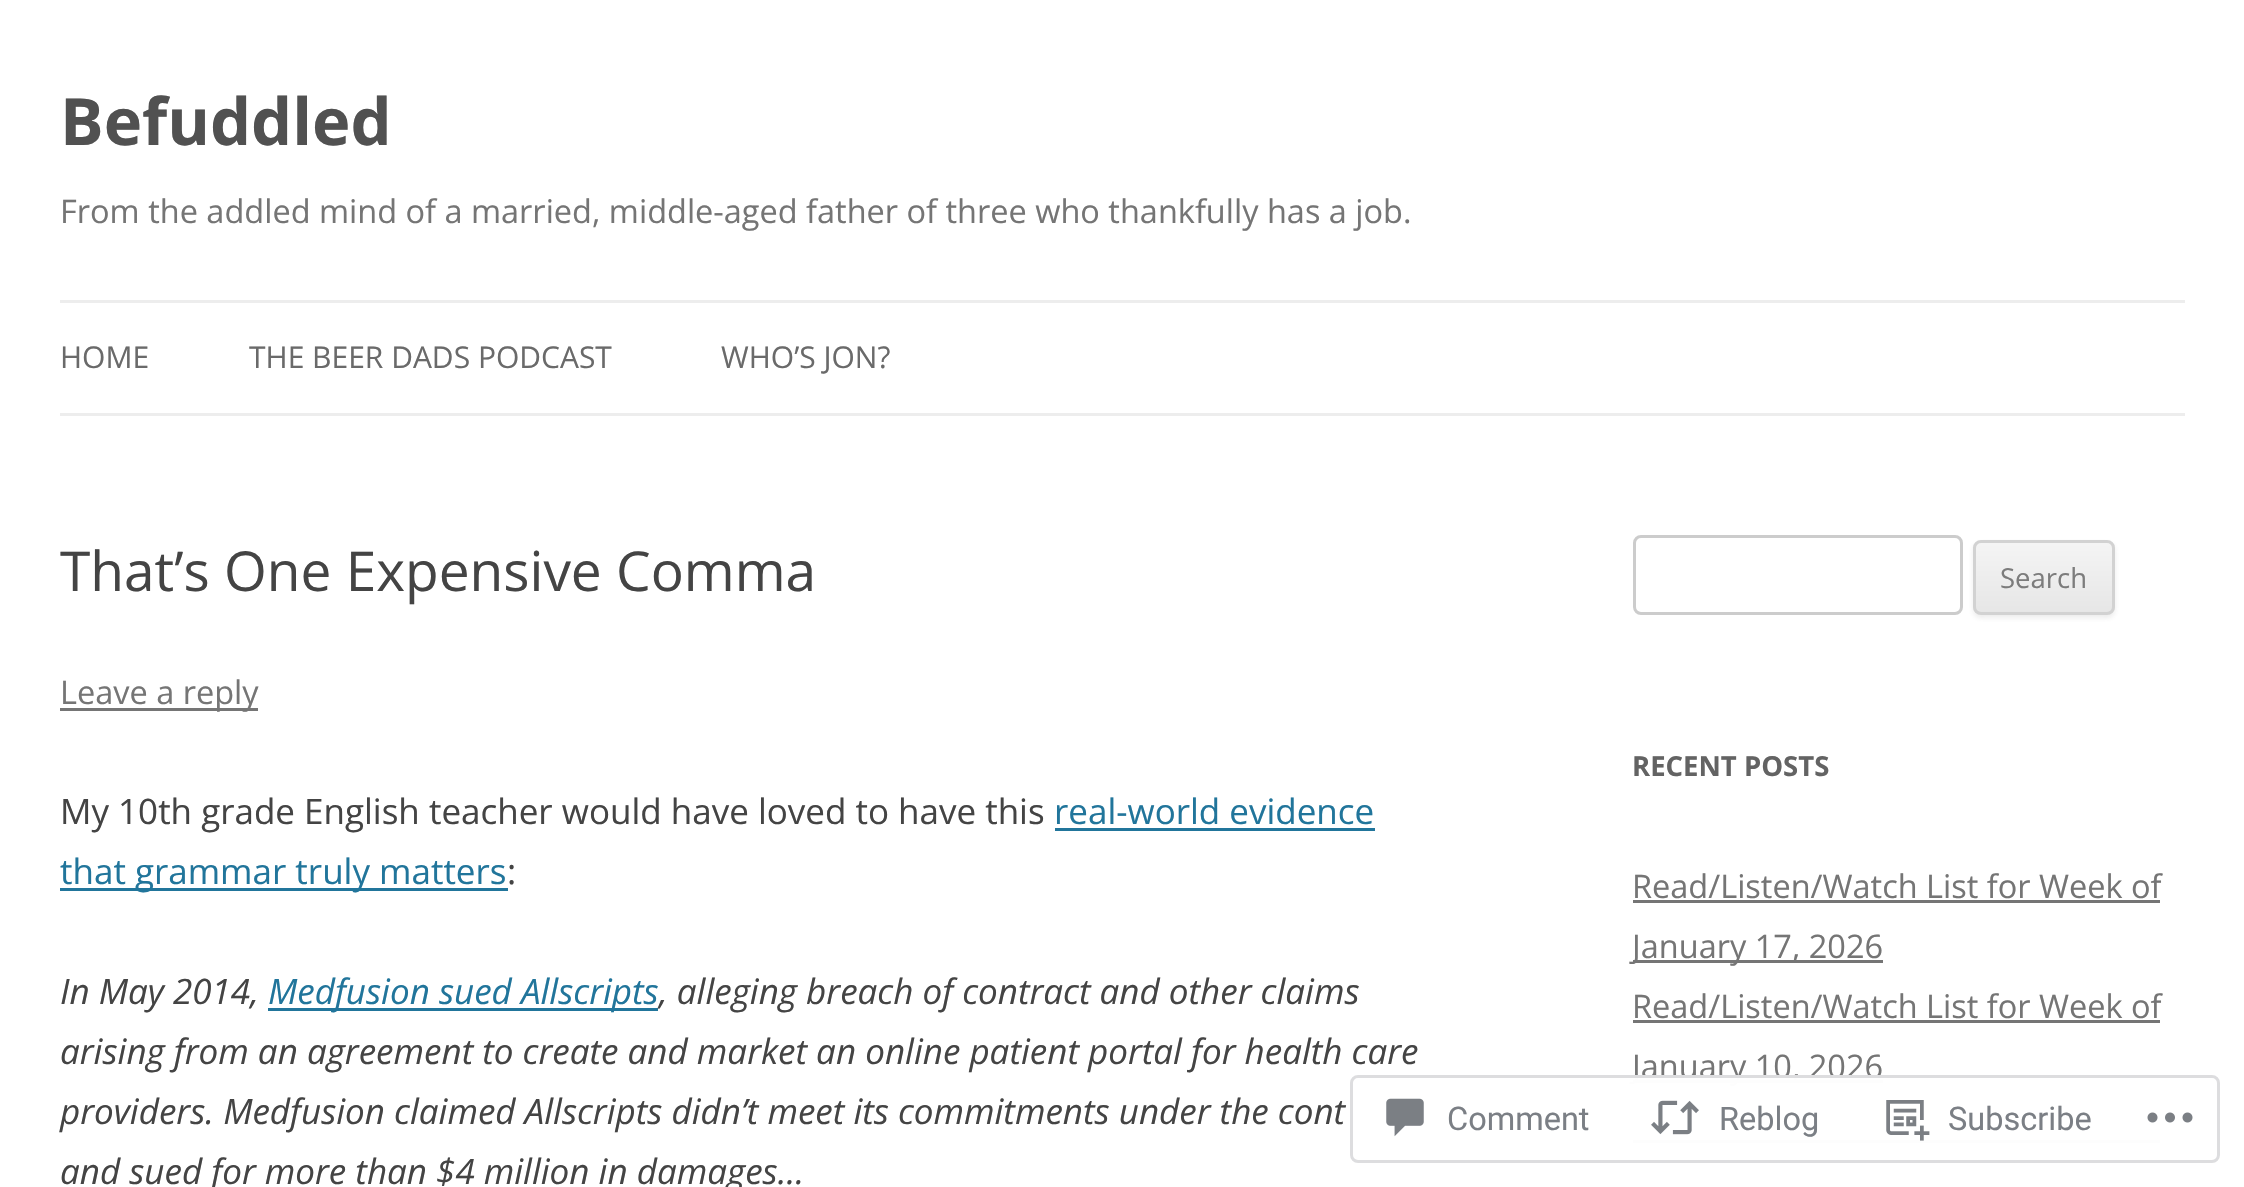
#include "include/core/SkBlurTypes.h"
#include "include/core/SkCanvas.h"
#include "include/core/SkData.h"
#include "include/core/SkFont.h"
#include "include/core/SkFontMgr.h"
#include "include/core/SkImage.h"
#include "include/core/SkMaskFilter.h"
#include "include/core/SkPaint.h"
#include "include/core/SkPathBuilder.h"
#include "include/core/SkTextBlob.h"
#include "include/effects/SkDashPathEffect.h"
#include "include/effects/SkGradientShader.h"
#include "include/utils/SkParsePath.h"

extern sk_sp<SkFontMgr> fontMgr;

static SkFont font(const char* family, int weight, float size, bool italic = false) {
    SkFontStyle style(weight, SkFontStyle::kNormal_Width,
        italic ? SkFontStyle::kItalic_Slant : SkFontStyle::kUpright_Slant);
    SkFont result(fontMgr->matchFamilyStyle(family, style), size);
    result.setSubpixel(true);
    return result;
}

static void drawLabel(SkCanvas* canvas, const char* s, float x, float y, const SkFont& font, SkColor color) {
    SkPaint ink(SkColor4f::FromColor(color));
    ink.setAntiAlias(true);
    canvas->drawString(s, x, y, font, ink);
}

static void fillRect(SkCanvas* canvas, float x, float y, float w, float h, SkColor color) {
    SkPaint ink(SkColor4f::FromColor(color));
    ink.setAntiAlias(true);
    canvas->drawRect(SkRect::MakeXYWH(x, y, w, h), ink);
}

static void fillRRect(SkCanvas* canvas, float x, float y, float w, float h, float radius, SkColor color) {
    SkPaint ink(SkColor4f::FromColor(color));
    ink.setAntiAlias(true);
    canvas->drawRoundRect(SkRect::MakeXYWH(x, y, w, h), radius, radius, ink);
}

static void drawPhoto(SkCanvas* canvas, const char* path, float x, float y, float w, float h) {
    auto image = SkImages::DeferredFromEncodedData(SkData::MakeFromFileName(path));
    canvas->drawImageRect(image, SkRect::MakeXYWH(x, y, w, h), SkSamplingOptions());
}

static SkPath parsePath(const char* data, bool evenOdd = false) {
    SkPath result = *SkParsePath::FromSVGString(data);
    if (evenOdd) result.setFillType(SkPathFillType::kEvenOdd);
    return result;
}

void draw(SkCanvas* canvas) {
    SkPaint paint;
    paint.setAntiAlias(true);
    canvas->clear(0xFFFFFFFF);
    SkFont font1 = font("Open Sans", 700, 65);
    drawLabel(canvas, "Befuddled", 60, 145, font1, 0xFF515151);
    SkFont font2 = font("Open Sans", 400, 32.5f);
    drawLabel(canvas, "From the addled mind of a married, middle-aged father of three who thankfully has a job.", 60, 223, font2, 0xFF757575);
    fillRect(canvas, 60, 300, 2125, 3, 0xFFEDEDED);
    fillRect(canvas, 60, 413, 2125, 3, 0xFFEDEDED);
    SkFont font3 = font("Open Sans", 400, 30);
    drawLabel(canvas, "HOME", 60, 368, font3, 0xFF6A6A6A);
    drawLabel(canvas, "THE BEER DADS PODCAST", 249, 368, font3, 0xFF6A6A6A);
    drawLabel(canvas, "WHO’S JON?", 721, 368, font3, 0xFF6A6A6A);
    SkFont font4 = font("Open Sans", 400, 55);
    drawLabel(canvas, "That’s One Expensive Comma", 60, 591, font4, 0xFF444444);
    fillRect(canvas, 60, 708, 198, 3, 0xFF757575);
    drawLabel(canvas, "Leave a reply", 60, 704, font2, 0xFF757575);
    SkFont font5 = font("Open Sans", 400, 35);
    drawLabel(canvas, "My 10th grade English teacher would have loved to have this", 60, 824, font5, 0xFF444444);
    drawLabel(canvas, "real-world evidence", 1054, 824, font5, 0xFF21759B);
    fillRect(canvas, 1055, 828, 320, 3, 0xFF21759B);
    fillRect(canvas, 60, 888, 448, 3, 0xFF21759B);
    drawLabel(canvas, "that grammar truly matters", 60, 884, font5, 0xFF21759B);
    drawLabel(canvas, ":", 507, 884, font5, 0xFF444444);
    SkFont font6 = font("Open Sans", 400, 35, true);
    drawLabel(canvas, "In May 2014,", 60, 1004, font6, 0xFF444444);
    fillRect(canvas, 268, 1008, 390, 3, 0xFF21759B);
    drawLabel(canvas, "Medfusion sued Allscripts", 268, 1004, font6, 0xFF21759B);
    drawLabel(canvas, ", alleging breach of contract and other claims", 659, 1004, font6, 0xFF444444);
    drawLabel(canvas, "arising from an agreement to create and market an online patient portal for health care", 60, 1064, font6, 0xFF444444);
    drawLabel(canvas, "providers. Medfusion claimed Allscripts didn’t meet its commitments under the cont", 60, 1124, font6, 0xFF444444);
    drawLabel(canvas, "and sued for more than $4 million in damages…", 60, 1184, font6, 0xFF444444);
    paint.setStroke(true);
    paint.setStrokeWidth(3);
    paint.setColor(0xFFCCCCCC);
    canvas->drawRoundRect(SkRect::MakeXYWH(1634.5f, 536.5f, 327, 77), 6.5f, 6.5f, paint);
    paint.setStroke(false);
    paint.setColor(0x1A404040);
    paint.setMaskFilter(SkMaskFilter::MakeBlur(kNormal_SkBlurStyle, 2.5f));
    canvas->drawRoundRect(SkRect::MakeXYWH(1973, 543, 142, 75), 8, 8, paint);
    paint.setMaskFilter(nullptr);
    canvas->save();
    canvas->clipPath(parsePath("M1981 540H2107C2111.5 540 2115 543.5 2115 548V607C2115 611.5 2111.5 615 2107 615H1981C1976.5 615 1973 611.5 1973 607V548C1973 543.5 1976.5 540 1981 540Z"), true);
    {
        const SkColor colors[] = {0xFFF4F4F4, 0xFFE6E6E6};
        const float stops[] = {0, 1};
        const SkPoint ends[] = {{2044, 543}, {2044, 613}};
        paint.setShader(SkGradientShader::MakeLinear(ends, colors, stops, 2, SkTileMode::kClamp));
        paint.setAlpha(255);
    }
    canvas->drawRect(SkRect::MakeXYWH(1973, 543, 142, 70), paint);
    canvas->restore();
    paint.setStroke(true);
    paint.setShader(nullptr);
    paint.setColor(0xFFD2D2D2);
    canvas->drawRoundRect(SkRect::MakeXYWH(1974.5f, 541.5f, 139, 72), 6.5f, 6.5f, paint);
    SkFont font7 = font("Open Sans", 400, 27.5f);
    drawLabel(canvas, "Search", 2000, 588, font7, 0xFF7C7C7C);
    SkFont font8 = font("Open Sans", 700, 27.5f);
    drawLabel(canvas, "RECENT POSTS", 1632, 776, font8, 0xFF636363);
    drawLabel(canvas, "Read/Listen/Watch List for Week of", 1632, 898, font2, 0xFF757575);
    fillRect(canvas, 1633, 900, 527, 3, 0xFF757575);
    fillRect(canvas, 1633, 960, 250, 3, 0xFF757575);
    drawLabel(canvas, "January 17, 2026", 1632, 958, font2, 0xFF757575);
    drawLabel(canvas, "Read/Listen/Watch List for Week of", 1632, 1018, font2, 0xFF757575);
    fillRect(canvas, 1633, 1020, 527, 3, 0xFF757575);
    fillRect(canvas, 1633, 1080, 250, 3, 0xFF757575);
    drawLabel(canvas, "January 10, 2026", 1632, 1078, font2, 0xFF757575);
    fillRect(canvas, 1633, 1140, 527, 3, 0xFF757575);
    fillRRect(canvas, 1350, 1075, 870, 88, 8, 0xFAFFFFFF);
    paint.setColor(0xFADCDCDE);
    canvas->drawRoundRect(SkRect::MakeXYWH(1351.5f, 1076.5f, 867, 85), 6.5f, 6.5f, paint);
    drawPhoto(canvas, "assets/img1.png", 1386, 1098, 38, 39);
    SkFont font9 = font("Roboto", 400, 32.5f);
    drawLabel(canvas, "Comment", 1447, 1130, font9, 0xFF7B7F85);
    drawPhoto(canvas, "assets/img2.png", 1651, 1100, 48, 35);
    drawLabel(canvas, "Reblog", 1719, 1130, font9, 0xFF7B7F85);
    drawPhoto(canvas, "assets/img3.png", 1886, 1100, 44, 41);
    drawLabel(canvas, "Subscribe", 1948, 1130, font9, 0xFF7B7F85);
    drawPhoto(canvas, "assets/img4.png", 2147, 1112, 46, 11);
}
